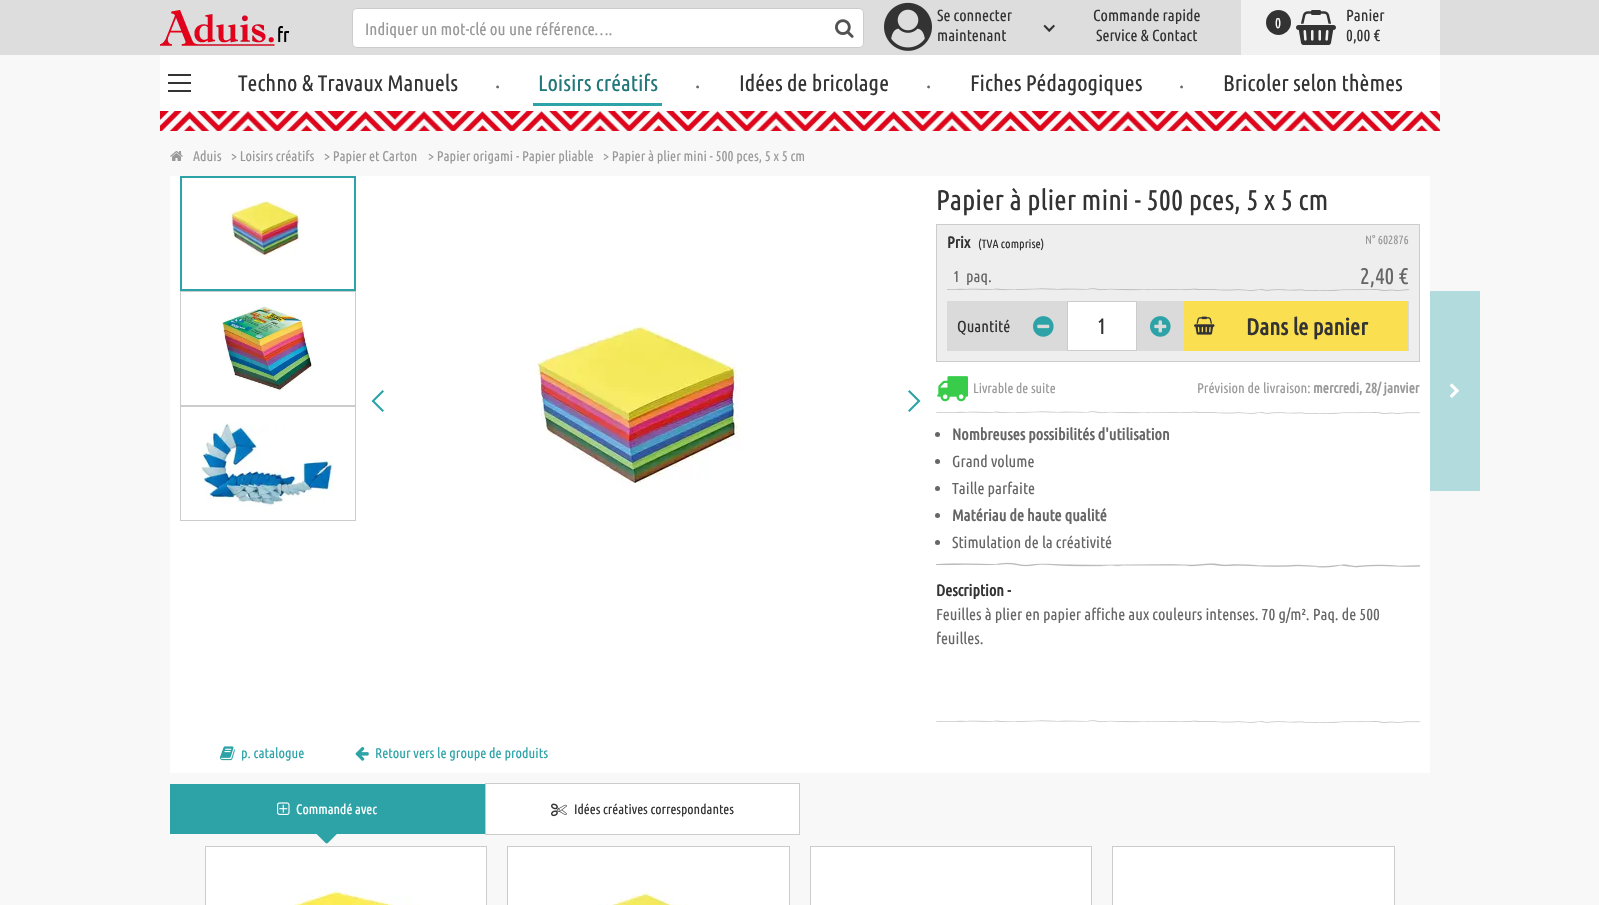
#include "include/core/SkBlurTypes.h"
#include "include/core/SkCanvas.h"
#include "include/core/SkData.h"
#include "include/core/SkFont.h"
#include "include/core/SkFontMgr.h"
#include "include/core/SkImage.h"
#include "include/core/SkMaskFilter.h"
#include "include/core/SkPaint.h"
#include "include/core/SkPathBuilder.h"
#include "include/core/SkTextBlob.h"
#include "include/effects/SkDashPathEffect.h"
#include "include/effects/SkGradientShader.h"
#include "include/utils/SkParsePath.h"

extern sk_sp<SkFontMgr> fontMgr;

static SkFont font(const char* family, int weight, float size, bool italic = false) {
    SkFontStyle style(weight, SkFontStyle::kNormal_Width,
        italic ? SkFontStyle::kItalic_Slant : SkFontStyle::kUpright_Slant);
    SkFont result(fontMgr->matchFamilyStyle(family, style), size);
    result.setSubpixel(true);
    return result;
}

static void drawLabel(SkCanvas* canvas, const char* s, float x, float y, const SkFont& font, SkColor color) {
    SkPaint ink(SkColor4f::FromColor(color));
    ink.setAntiAlias(true);
    canvas->drawString(s, x, y, font, ink);
}

static void fillRect(SkCanvas* canvas, float x, float y, float w, float h, SkColor color) {
    SkPaint ink(SkColor4f::FromColor(color));
    ink.setAntiAlias(true);
    canvas->drawRect(SkRect::MakeXYWH(x, y, w, h), ink);
}

static void drawPhoto(SkCanvas* canvas, const char* path, float x, float y, float w, float h) {
    auto image = SkImages::DeferredFromEncodedData(SkData::MakeFromFileName(path));
    canvas->drawImageRect(image, SkRect::MakeXYWH(x, y, w, h), SkSamplingOptions());
}

static SkPath parsePath(const char* data, bool evenOdd = false) {
    SkPath result = *SkParsePath::FromSVGString(data);
    if (evenOdd) result.setFillType(SkPathFillType::kEvenOdd);
    return result;
}

void draw(SkCanvas* canvas) {
    SkPaint paint;
    paint.setAntiAlias(true);
    canvas->clear(0xFFF8F8F8);
    fillRect(canvas, 0, 0, 1599, 55, 0xFFDDDDDD);
    drawPhoto(canvas, "assets/img1.png", 160, 10, 130, 36);
    paint.setColor(0xFFFFFFFF);
    canvas->drawRoundRect(SkRect::MakeXYWH(352.5f, 8.5f, 511, 39), 4.5f, 4.5f, paint);
    paint.setStroke(true);
    paint.setStrokeWidth(1);
    paint.setColor(0xFFCCCCCC);
    canvas->drawRoundRect(SkRect::MakeXYWH(352.5f, 8.5f, 511, 39), 4.5f, 4.5f, paint);
    SkFont font1 = font("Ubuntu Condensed", 400, 16.75f);
    drawLabel(canvas, "Indiquer un mot-clé ou une référence….", 365, 35, font1, 0xFF999999);
    drawPhoto(canvas, "assets/img2.png", 835, 19, 19, 19);
    drawPhoto(canvas, "assets/img3.png", 884, 2, 48, 49);
    SkFont font2 = font("Ubuntu Condensed", 400, 16);
    drawLabel(canvas, "Se connecter", 937, 21, font2, 0xFF333333);
    drawLabel(canvas, "maintenant", 937, 41, font2, 0xFF333333);
    drawPhoto(canvas, "assets/img4.png", 1043, 24, 12, 9);
    drawLabel(canvas, "Commande rapide", 1093, 21, font2, 0xFF333333);
    drawLabel(canvas, "Service & Contact", 1096, 41, font2, 0xFF333333);
    fillRect(canvas, 1241, 0, 199, 55, 0xFFF1F1F1);
    paint.setStroke(false);
    paint.setColor(0xFF333333);
    canvas->drawCircle(1278.5f, 22.5f, 12.5f, paint);
    SkFont font3 = font("Ubuntu Condensed", 400, 14);
    drawLabel(canvas, "0", 1275, 28, font3, 0xFFFFFFFF);
    drawPhoto(canvas, "assets/img5.png", 1296, 10, 40, 35);
    drawLabel(canvas, "Panier", 1346, 21, font2, 0xFF333333);
    drawLabel(canvas, "0,00 €", 1346, 41, font2, 0xFF333333);
    fillRect(canvas, 160, 55, 1280, 56, 0xFFFFFFFF);
    fillRect(canvas, 168, 74, 23, 2, 0xFF333333);
    fillRect(canvas, 168, 82, 23, 2, 0xFF333333);
    fillRect(canvas, 168, 90, 23, 2, 0xFF333333);
    SkFont font4 = font("Ubuntu Condensed", 400, 22.5f);
    drawLabel(canvas, "Techno & Travaux Manuels", 238, 91, font4, 0xFF333333);
    drawLabel(canvas, ".", 495, 88, font4, 0xFF666666);
    fillRect(canvas, 533, 103, 129, 3, 0xFF2DA3A8);
    drawLabel(canvas, "Loisirs créatifs", 538, 91, font4, 0xFF21777A);
    drawLabel(canvas, ".", 695, 88, font4, 0xFF666666);
    drawLabel(canvas, "Idées de bricolage", 739, 91, font4, 0xFF333333);
    drawLabel(canvas, ".", 926, 88, font4, 0xFF666666);
    drawLabel(canvas, "Fiches Pédagogiques", 970, 91, font4, 0xFF333333);
    drawLabel(canvas, ".", 1179, 88, font4, 0xFF666666);
    drawLabel(canvas, "Bricoler selon thèmes", 1223, 91, font4, 0xFF333333);
    drawPhoto(canvas, "assets/img6.png", 160, 111, 1280, 20);
    drawPhoto(canvas, "assets/img7.png", 170, 151, 13, 10);
    drawLabel(canvas, "Aduis", 193, 161, font3, 0xFF999999);
    drawLabel(canvas, "> Loisirs créatifs", 231, 161, font3, 0xFF999999);
    drawLabel(canvas, "> Papier et Carton", 324, 161, font3, 0xFF999999);
    drawLabel(canvas, "> Papier origami - Papier pliable", 428, 161, font3, 0xFF999999);
    drawLabel(canvas, "> Papier à plier mini - 500 pces, 5 x 5 cm", 603, 161, font3, 0xFF999999);
    fillRect(canvas, 170, 176, 1260, 597, 0xFFFFFFFF);
    paint.setStroke(true);
    paint.setStrokeWidth(2);
    paint.setColor(0xFF2DA3A8);
    canvas->drawRect(SkRect::MakeXYWH(181, 177, 174, 113), paint);
    drawPhoto(canvas, "assets/img8.png", 229, 201, 72, 55);
    paint.setStrokeWidth(1);
    paint.setColor(0xFFCCCCCC);
    canvas->drawRect(SkRect::MakeXYWH(180.5f, 291.5f, 175, 114), paint);
    drawPhoto(canvas, "assets/img9.png", 222, 306, 90, 85);
    canvas->drawRect(SkRect::MakeXYWH(180.5f, 406.5f, 175, 114), paint);
    drawPhoto(canvas, "assets/img10.png", 200, 423, 133, 83);
    paint.setStroke(false);
    paint.setColor(0xFF2DA3A8);
    canvas->drawPath(parsePath("M371.5 401L382.5 390L384 391.5L374.5 401L384 410.5L382.5 412Z"), paint);
    drawPhoto(canvas, "assets/img11.png", 534, 326, 207, 161);
    canvas->drawPath(parsePath("M920.5 401L909.5 390L908 391.5L917.5 401L908 410.5L909.5 412Z"), paint);
    SkFont font5 = font("Ubuntu Condensed", 400, 28.4f);
    drawLabel(canvas, "Papier à plier mini - 500 pces, 5 x 5 cm", 936, 210, font5, 0xFF333333);
    paint.setColor(0xFFEEEEEE);
    canvas->drawRect(SkRect::MakeXYWH(936.5f, 224.5f, 483, 137), paint);
    paint.setStroke(true);
    paint.setColor(0xFFCCCCCC);
    canvas->drawRect(SkRect::MakeXYWH(936.5f, 224.5f, 483, 137), paint);
    SkFont font6 = font("Ubuntu Condensed", 700, 16);
    drawLabel(canvas, "Prix", 947, 248, font6, 0xFF333333);
    SkFont font7 = font("Ubuntu Condensed", 400, 12);
    drawLabel(canvas, "(TVA comprise)", 978, 248, font7, 0xFF333333);
    drawLabel(canvas, "N° 602876", 1365, 244, font7, 0xFF999999);
    drawPhoto(canvas, "assets/img12.png", 947, 288, 462, 3);
    drawLabel(canvas, "1", 953, 282, font2, 0xFF666666);
    drawLabel(canvas, "paq.", 966, 282, font2, 0xFF666666);
    drawLabel(canvas, "2,40 €", 1360, 284, font4, 0xFF666666);
    fillRect(canvas, 947, 301, 462, 50, 0xFFDADADA);
    drawLabel(canvas, "Quantité", 957, 332, font2, 0xFF333333);
    drawPhoto(canvas, "assets/img13.png", 1033, 316, 21, 21);
    paint.setStroke(false);
    paint.setColor(0xFFFFFFFF);
    canvas->drawRect(SkRect::MakeXYWH(1067.5f, 301.5f, 69, 49), paint);
    paint.setStroke(true);
    paint.setColor(0xFFCCCCCC);
    canvas->drawRect(SkRect::MakeXYWH(1067.5f, 301.5f, 69, 49), paint);
    drawLabel(canvas, "1", 1097, 334, font4, 0xFF333333);
    drawPhoto(canvas, "assets/img14.png", 1150, 316, 21, 21);
    fillRect(canvas, 1184, 301, 224, 50, 0xFFFADF50);
    drawPhoto(canvas, "assets/img15.png", 1194, 316, 21, 19);
    SkFont font8 = font("Ubuntu Condensed", 700, 23);
    drawLabel(canvas, "Dans le panier", 1246, 335, font8, 0xFF333333);
    drawPhoto(canvas, "assets/img16.png", 936, 411, 484, 3);
    drawPhoto(canvas, "assets/img17.png", 937, 376, 31, 26);
    SkFont font9 = font("Ubuntu Condensed", 400, 13.6f);
    drawLabel(canvas, "Livrable de suite", 973, 393, font9, 0xFF999999);
    drawLabel(canvas, "Prévision de livraison:", 1197, 393, font3, 0xFF999999);
    SkFont font10 = font("Ubuntu Condensed", 700, 14);
    drawLabel(canvas, "mercredi, 28/ janvier", 1313, 393, font10, 0xFF999999);
    drawPhoto(canvas, "assets/img16.png", 936, 720, 484, 3);
    paint.setStroke(false);
    paint.setColor(0xFF666666);
    canvas->drawCircle(937.5f, 434.5f, 2.5f, paint);
    drawLabel(canvas, "Nombreuses possibilités d'utilisation", 952, 440, font6, 0xFF666666);
    canvas->drawCircle(937.5f, 461.5f, 2.5f, paint);
    drawLabel(canvas, "Grand volume", 952, 467, font2, 0xFF666666);
    canvas->drawCircle(937.5f, 488.5f, 2.5f, paint);
    drawLabel(canvas, "Taille parfaite", 952, 494, font2, 0xFF666666);
    canvas->drawCircle(937.5f, 515.5f, 2.5f, paint);
    drawLabel(canvas, "Matériau de haute qualité", 952, 521, font6, 0xFF666666);
    canvas->drawCircle(937.5f, 542.5f, 2.5f, paint);
    drawLabel(canvas, "Stimulation de la créativité", 952, 548, font2, 0xFF666666);
    drawPhoto(canvas, "assets/img18.png", 936, 562, 484, 6);
    drawLabel(canvas, "Description -", 936, 596, font6, 0xFF333333);
    drawLabel(canvas, "Feuilles à plier en papier affiche aux couleurs intenses. 70 g/m². Paq. de 500", 936, 620, font2, 0xFF666666);
    drawLabel(canvas, "feuilles.", 936, 644, font2, 0xFF666666);
    drawPhoto(canvas, "assets/img19.png", 220, 746, 15, 15);
    drawLabel(canvas, "p. catalogue", 241, 758, font3, 0xFF2DA3A8);
    drawPhoto(canvas, "assets/img20.png", 355, 746, 14, 15);
    drawLabel(canvas, "Retour vers le groupe de produits", 375, 758, font3, 0xFF2DA3A8);
    fillRect(canvas, 170, 784, 315, 50, 0xFF2DA3A8);
    drawPhoto(canvas, "assets/img21.png", 277, 802, 13, 13);
    drawLabel(canvas, "Commandé avec", 296, 814, font9, 0xFFFFFFFF);
    drawPhoto(canvas, "assets/img22.png", 316, 834, 21, 10);
    paint.setColor(0xFFFFFFFF);
    canvas->drawRect(SkRect::MakeXYWH(485.5f, 783.5f, 314, 51), paint);
    paint.setStroke(true);
    paint.setColor(0xFFCCCCCC);
    canvas->drawRect(SkRect::MakeXYWH(485.5f, 783.5f, 314, 51), paint);
    drawPhoto(canvas, "assets/img23.png", 551, 803, 16, 14);
    drawLabel(canvas, "Idées créatives correspondantes", 574, 814, font9, 0xFF333333);
    paint.setStroke(false);
    paint.setColor(0xFFFFFFFF);
    canvas->drawRect(SkRect::MakeXYWH(205.5f, 846.5f, 281, 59), paint);
    paint.setStroke(true);
    paint.setColor(0xFFCCCCCC);
    canvas->drawRect(SkRect::MakeXYWH(205.5f, 846.5f, 281, 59), paint);
    drawPhoto(canvas, "assets/img24.png", 294, 888, 126, 17);
    paint.setStroke(false);
    paint.setColor(0xFFFFFFFF);
    canvas->drawRect(SkRect::MakeXYWH(507.5f, 846.5f, 282, 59), paint);
    paint.setStroke(true);
    paint.setColor(0xFFCCCCCC);
    canvas->drawRect(SkRect::MakeXYWH(507.5f, 846.5f, 282, 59), paint);
    drawPhoto(canvas, "assets/img25.png", 599, 888, 88, 17);
    paint.setStroke(false);
    paint.setColor(0xFFFFFFFF);
    canvas->drawRect(SkRect::MakeXYWH(810.5f, 846.5f, 281, 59), paint);
    paint.setStroke(true);
    paint.setColor(0xFFCCCCCC);
    canvas->drawRect(SkRect::MakeXYWH(810.5f, 846.5f, 281, 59), paint);
    paint.setStroke(false);
    paint.setColor(0xFFFFFFFF);
    canvas->drawRect(SkRect::MakeXYWH(1112.5f, 846.5f, 282, 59), paint);
    paint.setStroke(true);
    paint.setColor(0xFFCCCCCC);
    canvas->drawRect(SkRect::MakeXYWH(1112.5f, 846.5f, 282, 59), paint);
    fillRect(canvas, 1430, 291, 50, 200, 0xFFB1DBDC);
    drawPhoto(canvas, "assets/img26.png", 1449, 383, 10, 15);
}
